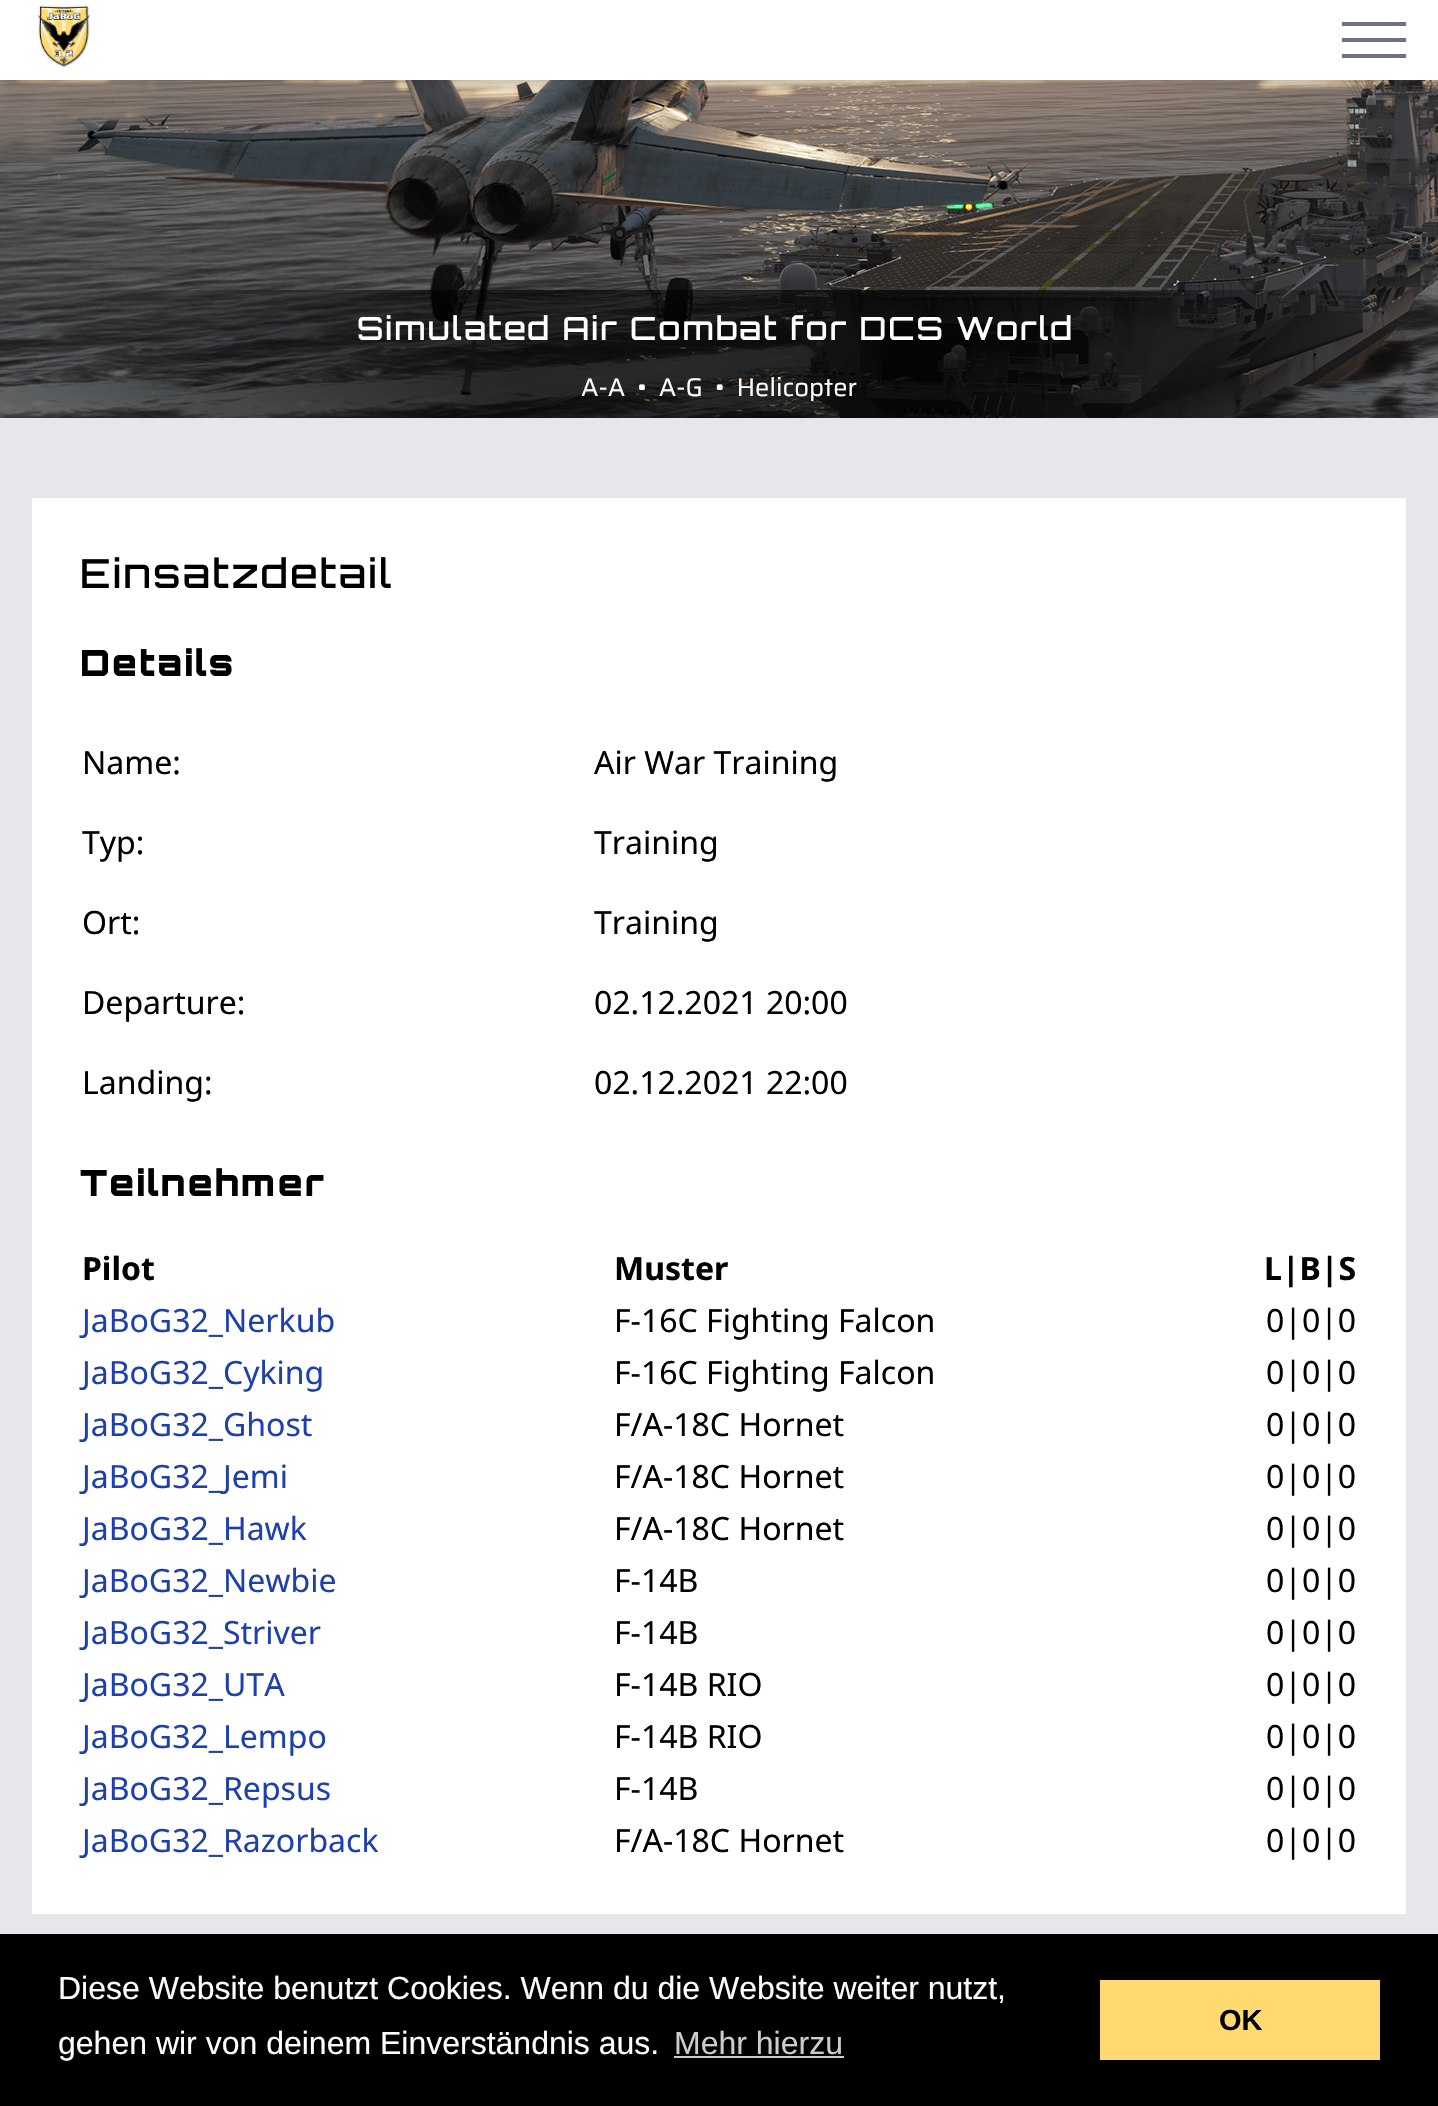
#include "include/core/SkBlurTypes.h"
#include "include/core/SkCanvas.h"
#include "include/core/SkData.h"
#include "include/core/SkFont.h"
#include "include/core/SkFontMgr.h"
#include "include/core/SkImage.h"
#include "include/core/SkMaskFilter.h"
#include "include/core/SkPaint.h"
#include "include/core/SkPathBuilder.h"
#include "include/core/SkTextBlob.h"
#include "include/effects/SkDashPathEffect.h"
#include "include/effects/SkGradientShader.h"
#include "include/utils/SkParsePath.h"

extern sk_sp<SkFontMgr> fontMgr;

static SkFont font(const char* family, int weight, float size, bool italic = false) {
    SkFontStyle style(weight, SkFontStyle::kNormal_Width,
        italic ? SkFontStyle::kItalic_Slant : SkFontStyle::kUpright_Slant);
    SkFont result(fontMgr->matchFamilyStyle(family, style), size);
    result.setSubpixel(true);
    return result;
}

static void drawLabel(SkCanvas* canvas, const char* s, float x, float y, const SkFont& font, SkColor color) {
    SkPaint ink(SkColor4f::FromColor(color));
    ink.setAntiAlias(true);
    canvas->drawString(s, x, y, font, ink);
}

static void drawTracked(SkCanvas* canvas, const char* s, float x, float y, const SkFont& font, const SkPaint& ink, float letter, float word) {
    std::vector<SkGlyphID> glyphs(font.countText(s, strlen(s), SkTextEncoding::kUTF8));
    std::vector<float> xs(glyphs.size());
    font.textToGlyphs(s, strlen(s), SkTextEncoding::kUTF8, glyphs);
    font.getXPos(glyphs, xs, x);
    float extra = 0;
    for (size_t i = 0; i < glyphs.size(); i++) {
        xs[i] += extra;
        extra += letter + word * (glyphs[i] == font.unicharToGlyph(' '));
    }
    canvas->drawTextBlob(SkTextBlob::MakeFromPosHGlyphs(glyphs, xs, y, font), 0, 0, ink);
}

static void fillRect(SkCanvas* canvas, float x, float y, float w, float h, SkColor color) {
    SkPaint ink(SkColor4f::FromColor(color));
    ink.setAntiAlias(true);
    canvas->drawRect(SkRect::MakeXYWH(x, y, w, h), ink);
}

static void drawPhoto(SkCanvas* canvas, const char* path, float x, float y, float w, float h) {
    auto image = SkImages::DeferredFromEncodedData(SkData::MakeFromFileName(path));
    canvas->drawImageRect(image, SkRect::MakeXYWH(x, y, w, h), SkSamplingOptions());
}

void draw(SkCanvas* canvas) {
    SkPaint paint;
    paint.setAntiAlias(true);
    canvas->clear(0xFFE5E7EB);
    drawPhoto(canvas, "assets/img2.png", 0, 80, 1438, 338);
    paint.setColor(0x1A000000);
    paint.setMaskFilter(SkMaskFilter::MakeBlur(kNormal_SkBlurStyle, 4));
    canvas->drawRect(SkRect::MakeXYWH(4, 8, 1430, 72), paint);
    paint.setMaskFilter(nullptr);
    paint.setMaskFilter(SkMaskFilter::MakeBlur(kNormal_SkBlurStyle, 6));
    canvas->drawRect(SkRect::MakeXYWH(2, 10, 1434, 76), paint);
    paint.setMaskFilter(nullptr);
    fillRect(canvas, 0, 0, 1438, 80, 0xFFFFFFFF);
    fillRect(canvas, 1342, 22, 64, 4, 0xFF6B7280);
    fillRect(canvas, 1342, 38, 64, 4, 0xFF6B7280);
    fillRect(canvas, 1342, 54, 64, 4, 0xFF6B7280);
    drawPhoto(canvas, "assets/img1.png", 38, 5, 52, 63);
    SkFont font1 = font("Orbitron", 500, 32);
    paint.setColor(0xFFFFFFFF);
    drawTracked(canvas, "Simulated Air Combat for DCS World", 357, 340, font1, paint, 2, 0);
    SkFont font2 = font("Saira", 100, 25.6f);
    drawLabel(canvas, "A-A  •  A-G  •  Helicopter", 581, 396, font2, 0xFFFFFFFF);
    fillRect(canvas, 32, 498, 1374, 1416, 0xFFFFFFFF);
    SkFont font3 = font("Orbitron", 500, 40);
    paint.setColor(0xFF000000);
    drawTracked(canvas, "Einsatzdetail", 80, 588, font3, paint, 2, 0);
    SkFont font4 = font("Orbitron", 900, 36);
    drawTracked(canvas, "Details", 80, 676, font4, paint, 2, 0);
    SkFont font5 = font("Noto Sans", 400, 32);
    drawLabel(canvas, "Name:", 82, 774, font5, 0xFF000000);
    drawLabel(canvas, "Air War Training", 594, 774, font5, 0xFF000000);
    drawLabel(canvas, "Typ:", 82, 854, font5, 0xFF000000);
    drawLabel(canvas, "Training", 594, 854, font5, 0xFF000000);
    drawLabel(canvas, "Ort:", 82, 934, font5, 0xFF000000);
    drawLabel(canvas, "Training", 594, 934, font5, 0xFF000000);
    drawLabel(canvas, "Departure:", 82, 1014, font5, 0xFF000000);
    drawLabel(canvas, "02.12.2021 20:00", 594, 1014, font5, 0xFF000000);
    drawLabel(canvas, "Landing:", 82, 1094, font5, 0xFF000000);
    drawLabel(canvas, "02.12.2021 22:00", 594, 1094, font5, 0xFF000000);
    drawTracked(canvas, "Teilnehmer", 80, 1196, font4, paint, 2, 0);
    SkFont font6 = font("Noto Sans", 700, 32);
    drawLabel(canvas, "Pilot", 82, 1280, font6, 0xFF000000);
    drawLabel(canvas, "Muster", 614, 1280, font6, 0xFF000000);
    drawLabel(canvas, "L|B|S", 1264, 1280, font6, 0xFF000000);
    drawLabel(canvas, "JaBoG32_Nerkub", 82, 1332, font5, 0xFF1E40AF);
    drawLabel(canvas, "F-16C Fighting Falcon", 614, 1332, font5, 0xFF000000);
    drawLabel(canvas, "0|0|0", 1266, 1332, font5, 0xFF000000);
    drawLabel(canvas, "JaBoG32_Cyking", 82, 1384, font5, 0xFF1E40AF);
    drawLabel(canvas, "F-16C Fighting Falcon", 614, 1384, font5, 0xFF000000);
    drawLabel(canvas, "0|0|0", 1266, 1384, font5, 0xFF000000);
    drawLabel(canvas, "JaBoG32_Ghost", 82, 1436, font5, 0xFF1E40AF);
    drawLabel(canvas, "F/A-18C Hornet", 614, 1436, font5, 0xFF000000);
    drawLabel(canvas, "0|0|0", 1266, 1436, font5, 0xFF000000);
    drawLabel(canvas, "JaBoG32_Jemi", 82, 1488, font5, 0xFF1E40AF);
    drawLabel(canvas, "F/A-18C Hornet", 614, 1488, font5, 0xFF000000);
    drawLabel(canvas, "0|0|0", 1266, 1488, font5, 0xFF000000);
    drawLabel(canvas, "JaBoG32_Hawk", 82, 1540, font5, 0xFF1E40AF);
    drawLabel(canvas, "F/A-18C Hornet", 614, 1540, font5, 0xFF000000);
    drawLabel(canvas, "0|0|0", 1266, 1540, font5, 0xFF000000);
    drawLabel(canvas, "JaBoG32_Newbie", 82, 1592, font5, 0xFF1E40AF);
    drawLabel(canvas, "F-14B", 614, 1592, font5, 0xFF000000);
    drawLabel(canvas, "0|0|0", 1266, 1592, font5, 0xFF000000);
    drawLabel(canvas, "JaBoG32_Striver", 82, 1644, font5, 0xFF1E40AF);
    drawLabel(canvas, "F-14B", 614, 1644, font5, 0xFF000000);
    drawLabel(canvas, "0|0|0", 1266, 1644, font5, 0xFF000000);
    drawLabel(canvas, "JaBoG32_UTA", 82, 1696, font5, 0xFF1E40AF);
    drawLabel(canvas, "F-14B RIO", 614, 1696, font5, 0xFF000000);
    drawLabel(canvas, "0|0|0", 1266, 1696, font5, 0xFF000000);
    drawLabel(canvas, "JaBoG32_Lempo", 82, 1748, font5, 0xFF1E40AF);
    drawLabel(canvas, "F-14B RIO", 614, 1748, font5, 0xFF000000);
    drawLabel(canvas, "0|0|0", 1266, 1748, font5, 0xFF000000);
    drawLabel(canvas, "JaBoG32_Repsus", 82, 1800, font5, 0xFF1E40AF);
    drawLabel(canvas, "F-14B", 614, 1800, font5, 0xFF000000);
    drawLabel(canvas, "0|0|0", 1266, 1800, font5, 0xFF000000);
    drawLabel(canvas, "JaBoG32_Razorback", 82, 1852, font5, 0xFF1E40AF);
    drawLabel(canvas, "F/A-18C Hornet", 614, 1852, font5, 0xFF000000);
    drawLabel(canvas, "0|0|0", 1266, 1852, font5, 0xFF000000);
    fillRect(canvas, 0, 1934, 1438, 172, 0xFF000000);
    SkFont font7 = font("Liberation Sans", 400, 32);
    drawLabel(canvas, "Diese Website benutzt Cookies. Wenn du die Website weiter nutzt,", 58, 1999, font7, 0xFFFFFFFF);
    drawLabel(canvas, "gehen wir von deinem Einverständnis aus.", 58, 2054, font7, 0xFFFFFFFF);
    drawLabel(canvas, "Mehr hierzu", 674, 2054, font7, 0xFFCCCCCC);
    fillRect(canvas, 674, 2056, 170, 2, 0xFFCCCCCC);
    fillRect(canvas, 1100, 1980, 280, 80, 0xFFFFDA71);
    SkFont font8 = font("Liberation Sans", 700, 29);
    drawLabel(canvas, "OK", 1219, 2030, font8, 0xFF000000);
}
